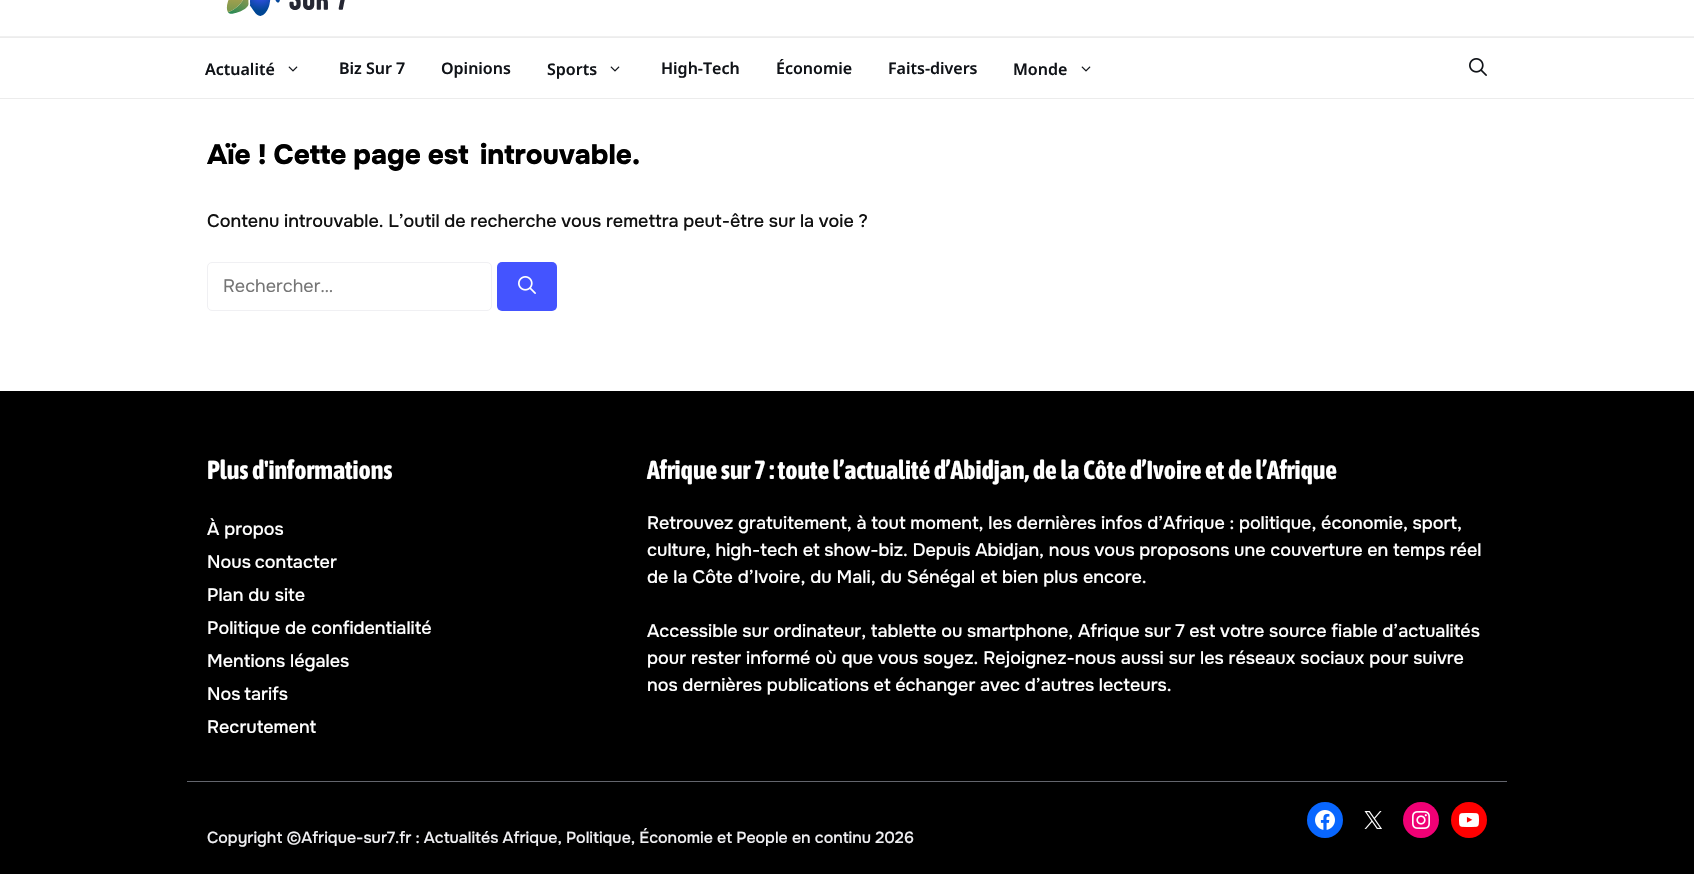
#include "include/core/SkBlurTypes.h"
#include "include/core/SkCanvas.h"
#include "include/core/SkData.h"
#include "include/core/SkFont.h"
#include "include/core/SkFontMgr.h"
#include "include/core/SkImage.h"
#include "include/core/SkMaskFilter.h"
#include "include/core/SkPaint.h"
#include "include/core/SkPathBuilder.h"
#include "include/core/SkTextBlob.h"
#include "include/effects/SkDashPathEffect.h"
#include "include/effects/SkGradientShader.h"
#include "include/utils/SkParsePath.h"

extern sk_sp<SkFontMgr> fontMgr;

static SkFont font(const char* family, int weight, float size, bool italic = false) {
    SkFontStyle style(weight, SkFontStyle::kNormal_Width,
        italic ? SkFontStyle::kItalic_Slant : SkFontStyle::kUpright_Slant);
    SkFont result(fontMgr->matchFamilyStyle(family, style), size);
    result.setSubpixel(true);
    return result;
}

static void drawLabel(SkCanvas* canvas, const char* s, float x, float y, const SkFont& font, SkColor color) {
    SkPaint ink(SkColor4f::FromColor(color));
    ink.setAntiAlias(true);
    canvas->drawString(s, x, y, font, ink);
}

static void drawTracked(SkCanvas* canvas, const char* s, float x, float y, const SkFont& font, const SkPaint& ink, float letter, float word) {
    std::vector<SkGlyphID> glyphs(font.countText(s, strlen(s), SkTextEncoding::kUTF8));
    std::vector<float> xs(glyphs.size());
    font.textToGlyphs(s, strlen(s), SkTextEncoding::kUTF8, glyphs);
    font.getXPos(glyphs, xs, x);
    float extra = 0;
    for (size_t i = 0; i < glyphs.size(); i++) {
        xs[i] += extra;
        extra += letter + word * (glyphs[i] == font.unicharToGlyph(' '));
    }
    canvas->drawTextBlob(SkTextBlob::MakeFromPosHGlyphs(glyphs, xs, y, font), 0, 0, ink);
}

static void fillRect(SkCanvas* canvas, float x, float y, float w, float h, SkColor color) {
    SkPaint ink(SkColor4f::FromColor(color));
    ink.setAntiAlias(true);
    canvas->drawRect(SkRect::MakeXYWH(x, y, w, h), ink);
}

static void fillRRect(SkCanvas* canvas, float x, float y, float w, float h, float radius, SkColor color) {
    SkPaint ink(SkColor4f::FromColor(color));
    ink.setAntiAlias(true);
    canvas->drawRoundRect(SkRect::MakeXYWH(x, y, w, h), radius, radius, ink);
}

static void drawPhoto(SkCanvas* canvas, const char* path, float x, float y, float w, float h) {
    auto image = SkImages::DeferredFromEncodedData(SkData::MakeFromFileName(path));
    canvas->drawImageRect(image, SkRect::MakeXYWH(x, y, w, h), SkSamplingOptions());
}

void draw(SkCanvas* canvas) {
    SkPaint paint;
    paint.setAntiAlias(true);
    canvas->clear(0xFFFFFFFF);
    fillRect(canvas, 0, 36, 1694, 1, 0xFFF0F0F0);
    drawPhoto(canvas, "assets/img1.png", 226, 0, 119, 16);
    fillRect(canvas, 0, 37, 1694, 1, 0xFFECECEC);
    fillRect(canvas, 0, 98, 1694, 1, 0xFFECECEC);
    SkFont font1 = font("Noto Sans", 600, 16);
    drawLabel(canvas, "Actualité", 205, 75, font1, 0xFF101318);
    drawPhoto(canvas, "assets/img2.png", 288, 66, 10, 6);
    drawLabel(canvas, "Biz Sur 7", 339, 74, font1, 0xFF101318);
    drawLabel(canvas, "Opinions", 441, 74, font1, 0xFF101318);
    drawLabel(canvas, "Sports", 547, 75, font1, 0xFF101318);
    drawPhoto(canvas, "assets/img2.png", 610, 66, 10, 6);
    drawLabel(canvas, "High-Tech", 661, 74, font1, 0xFF101318);
    drawLabel(canvas, "Économie", 776, 74, font1, 0xFF101318);
    drawLabel(canvas, "Faits-divers", 888, 74, font1, 0xFF101318);
    drawLabel(canvas, "Monde", 1013, 75, font1, 0xFF101318);
    drawPhoto(canvas, "assets/img2.png", 1081, 66, 10, 6);
    drawPhoto(canvas, "assets/img3.png", 1469, 58, 18, 18);
    SkFont font2 = font("Onest", 800, 28);
    paint.setColor(0xFF000000);
    drawTracked(canvas, "Aïe ! Cette page est", 207, 164, font2, paint, 0, -1);
    drawTracked(canvas, "introuvable.", 480, 164, font2, paint, 0, -1);
    SkFont font3 = font("Onest", 500, 18);
    paint.setColor(0xFF111111);
    drawTracked(canvas, "Contenu introuvable. L’outil de recherche vous remettra peut-être sur la voie ?", 207, 227, font3, paint, 0, -0.25f);
    paint.setStroke(true);
    paint.setStrokeWidth(1);
    paint.setColor(0xFFF0F0F3);
    canvas->drawRoundRect(SkRect::MakeXYWH(207.5f, 262.5f, 284, 48), 4.5f, 4.5f, paint);
    SkFont font4 = font("Onest", 400, 18);
    drawLabel(canvas, "Rechercher…", 223, 292, font4, 0xFF757575);
    fillRRect(canvas, 497, 262, 60, 49, 5, 0xFF4454FF);
    drawPhoto(canvas, "assets/img4.png", 518, 276, 18, 18);
    fillRect(canvas, 0, 391, 1694, 483, 0xFF000000);
    SkFont font5 = font("Asap Condensed", 700, 26);
    drawLabel(canvas, "Plus d'informations", 207, 479, font5, 0xFFFFFFFF);
    drawLabel(canvas, "À propos", 207, 535, font3, 0xFFFFFFFF);
    paint.setStroke(false);
    paint.setColor(0xFFFFFFFF);
    drawTracked(canvas, "Nous contacter", 207, 568, font3, paint, 0, -1);
    drawLabel(canvas, "Plan du site", 207, 601, font3, 0xFFFFFFFF);
    drawLabel(canvas, "Politique de confidentialité", 207, 634, font3, 0xFFFFFFFF);
    drawLabel(canvas, "Mentions légales", 207, 667, font3, 0xFFFFFFFF);
    drawTracked(canvas, "Nos tarifs", 207, 700, font3, paint, 0, -1);
    drawLabel(canvas, "Recrutement", 207, 733, font3, 0xFFFFFFFF);
    drawLabel(canvas, "Afrique sur 7 : toute l’actualité d’Abidjan, de la Côte d’Ivoire et de l’Afrique", 647, 479, font5, 0xFFFFFFFF);
    drawTracked(canvas, "Retrouvez gratuitement, à tout moment, les dernières infos d’Afrique : politique, économie, sport,", 647, 529, font3, paint, 0, -0.25f);
    drawTracked(canvas, "culture, high-tech et show-biz. Depuis Abidjan, nous vous proposons une couverture en temps réel", 647, 556, font3, paint, 0, -0.25f);
    drawLabel(canvas, "de la Côte d’Ivoire, du Mali, du Sénégal et bien plus encore.", 647, 583, font3, 0xFFFFFFFF);
    drawTracked(canvas, "Accessible sur ordinateur, tablette ou smartphone, Afrique sur 7 est votre source fiable d’actualités", 647, 637, font3, paint, 0, -0.25f);
    drawLabel(canvas, "pour rester informé où que vous soyez. Rejoignez-nous aussi sur les réseaux sociaux pour suivre", 647, 664, font3, 0xFFFFFFFF);
    drawTracked(canvas, "nos dernières publications et échanger avec d’autres lecteurs.", 647, 691, font3, paint, 0, -0.25f);
    fillRect(canvas, 187, 781, 1320, 1, 0xFF63656D);
    SkFont font6 = font("Onest", 500, 16);
    paint.setColor(0xFFF0F0F3);
    drawTracked(canvas, "Copyright ©Afrique-sur7.fr : Actualités Afrique, Politique, Économie et People en continu 2026", 207, 843, font6, paint, 0, -0.25f);
    paint.setColor(0xFF0866FF);
    canvas->drawCircle(1325, 820, 18, paint);
    drawPhoto(canvas, "assets/img5.png", 1315, 810, 20, 20);
    drawPhoto(canvas, "assets/img6.png", 1364, 811, 18, 18);
    paint.setColor(0xFFF00075);
    canvas->drawCircle(1421, 820, 18, paint);
    drawPhoto(canvas, "assets/img7.png", 1412, 811, 18, 18);
    paint.setColor(0xFFFF0000);
    canvas->drawCircle(1469, 820, 18, paint);
    drawPhoto(canvas, "assets/img8.png", 1459, 813, 20, 14);
}
